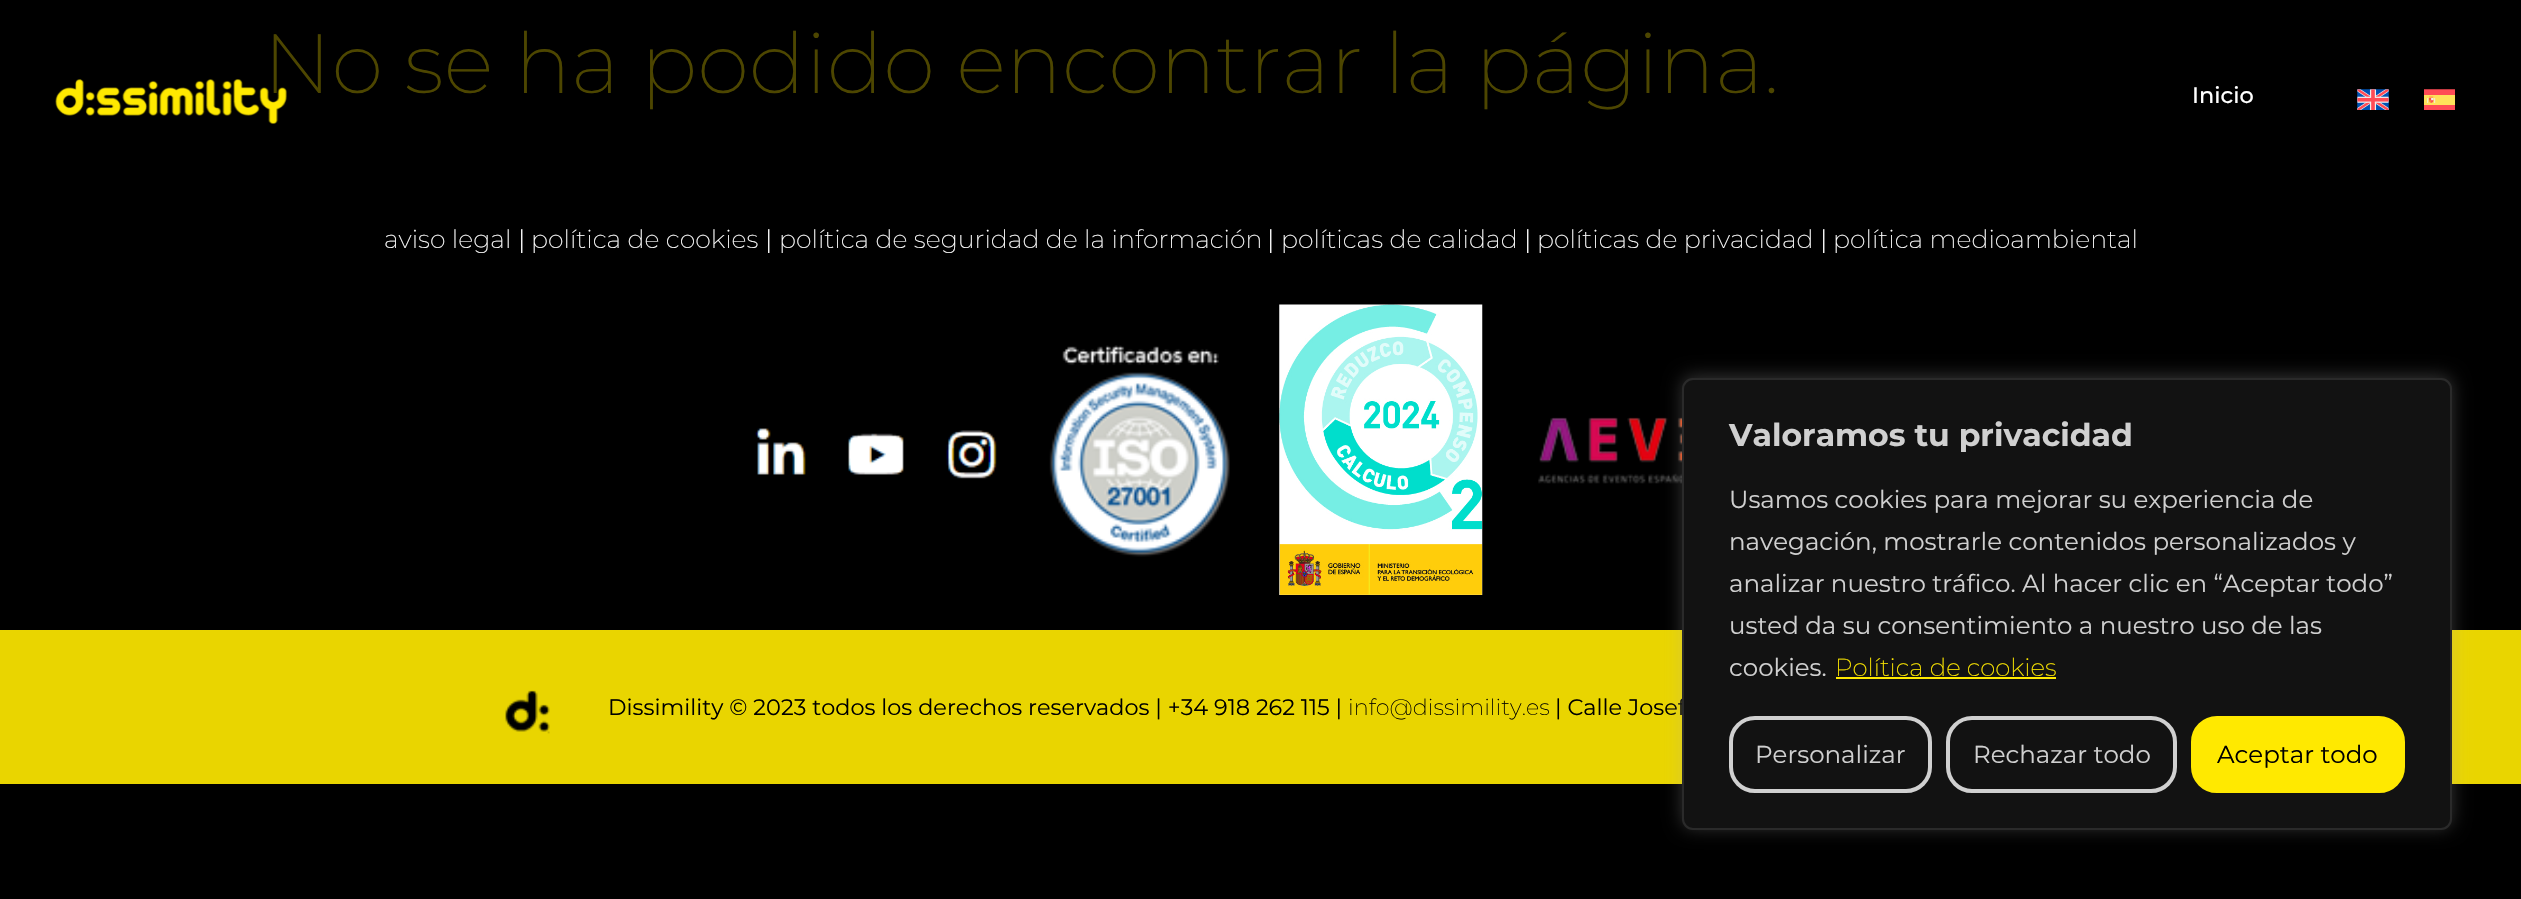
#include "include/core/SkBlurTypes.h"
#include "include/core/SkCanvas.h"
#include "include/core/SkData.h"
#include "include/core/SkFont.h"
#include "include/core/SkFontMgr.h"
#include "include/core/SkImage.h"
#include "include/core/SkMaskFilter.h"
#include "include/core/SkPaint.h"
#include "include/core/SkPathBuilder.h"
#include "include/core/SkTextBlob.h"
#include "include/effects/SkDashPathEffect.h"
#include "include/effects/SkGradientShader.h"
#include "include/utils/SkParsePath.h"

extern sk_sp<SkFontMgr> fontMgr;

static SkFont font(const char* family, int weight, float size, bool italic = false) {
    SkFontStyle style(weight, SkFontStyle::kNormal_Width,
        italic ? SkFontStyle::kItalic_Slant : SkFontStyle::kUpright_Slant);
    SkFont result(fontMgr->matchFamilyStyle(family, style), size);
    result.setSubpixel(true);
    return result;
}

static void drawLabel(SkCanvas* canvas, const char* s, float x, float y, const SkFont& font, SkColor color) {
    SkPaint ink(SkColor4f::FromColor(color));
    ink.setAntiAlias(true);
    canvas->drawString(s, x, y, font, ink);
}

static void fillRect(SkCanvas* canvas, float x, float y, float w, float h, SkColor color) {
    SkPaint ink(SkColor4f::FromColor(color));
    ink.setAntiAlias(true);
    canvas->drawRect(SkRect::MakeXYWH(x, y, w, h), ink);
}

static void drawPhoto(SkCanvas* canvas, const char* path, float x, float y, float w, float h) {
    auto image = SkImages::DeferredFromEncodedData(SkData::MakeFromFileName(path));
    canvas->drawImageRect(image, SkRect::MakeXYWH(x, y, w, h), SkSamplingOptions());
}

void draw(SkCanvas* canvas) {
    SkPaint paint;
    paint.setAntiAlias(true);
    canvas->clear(0xFF000000);
    SkFont font1 = font("Montserrat", 200, 84);
    drawLabel(canvas, "No se ha podido encontrar la página.", 263, 93, font1, 0xFF4D4600);
    drawPhoto(canvas, "assets/img1.png", 55, 79, 232, 45);
    SkFont font2 = font("Montserrat", 500, 22.4f);
    drawLabel(canvas, "Inicio", 2192, 103, font2, 0xFFFFFFFF);
    drawPhoto(canvas, "assets/img2.png", 2357, 89, 32, 21);
    drawPhoto(canvas, "assets/img3.png", 2424, 89, 31, 21);
    SkFont font3 = font("Montserrat", 200, 25.25f);
    drawLabel(canvas, "aviso legal", 384, 248, font3, 0xFFFFFFFF);
    SkFont font4 = font("Montserrat", 300, 25.25f);
    drawLabel(canvas, "|", 518, 248, font4, 0xFFFFFFFF);
    drawLabel(canvas, "política de cookies", 531, 248, font3, 0xFFFFFFFF);
    drawLabel(canvas, "|", 765, 248, font4, 0xFFFFFFFF);
    drawLabel(canvas, "política de seguridad de la información", 779, 248, font3, 0xFFFFFFFF);
    drawLabel(canvas, "|", 1267, 248, font4, 0xFFFFFFFF);
    drawLabel(canvas, "políticas de calidad", 1281, 248, font3, 0xFFFFFFFF);
    drawLabel(canvas, "|", 1524, 248, font4, 0xFFFFFFFF);
    drawLabel(canvas, "políticas de privacidad", 1537, 248, font3, 0xFFFFFFFF);
    drawLabel(canvas, "|", 1820, 248, font4, 0xFFFFFFFF);
    drawLabel(canvas, "política medioambiental", 1833, 248, font3, 0xFFFFFFFF);
    drawPhoto(canvas, "assets/img4.png", 755, 428, 51, 47);
    drawPhoto(canvas, "assets/img5.png", 848, 433, 56, 42);
    drawPhoto(canvas, "assets/img6.png", 946, 430, 51, 49);
    drawPhoto(canvas, "assets/img7.png", 1049, 345, 181, 212);
    drawPhoto(canvas, "assets/img8.png", 1279, 304, 204, 291);
    drawPhoto(canvas, "assets/img9.png", 1538, 417, 144, 67);
    fillRect(canvas, 0, 630, 2521, 154, 0xFFE9D500);
    drawPhoto(canvas, "assets/img10.png", 505, 690, 45, 44);
    SkFont font5 = font("Montserrat", 400, 22.4f);
    drawLabel(canvas, "Dissimility © 2023 todos los derechos reservados | +34 918 262 115 |", 608, 715, font5, 0xFF000000);
    SkFont font6 = font("Montserrat", 200, 22.4f);
    drawLabel(canvas, "info@dissimility.es", 1348, 715, font6, 0xFF000000);
    drawLabel(canvas, "| Calle Josef", 1555, 715, font5, 0xFF000000);
    paint.setColor(0x4DACABAB);
    paint.setMaskFilter(SkMaskFilter::MakeBlur(kNormal_SkBlurStyle, 9));
    canvas->drawRoundRect(SkRect::MakeXYWH(1682, 376, 770, 452), 11, 11, paint);
    paint.setMaskFilter(nullptr);
    paint.setColor(0xFF121212);
    canvas->drawRoundRect(SkRect::MakeXYWH(1683, 379, 768, 450), 10, 10, paint);
    paint.setStroke(true);
    paint.setStrokeWidth(2);
    paint.setColor(0xFF2A2A2A);
    canvas->drawRoundRect(SkRect::MakeXYWH(1683, 379, 768, 450), 10, 10, paint);
    SkFont font7 = font("Montserrat", 700, 31.5f);
    drawLabel(canvas, "Valoramos tu privacidad", 1729, 446, font7, 0xFFD0D0D0);
    SkFont font8 = font("Montserrat", 400, 24.5f);
    drawLabel(canvas, "Usamos cookies para mejorar su experiencia de", 1729, 508, font8, 0xFFD0D0D0);
    drawLabel(canvas, "navegación, mostrarle contenidos personalizados y", 1729, 550, font8, 0xFFD0D0D0);
    drawLabel(canvas, "analizar nuestro tráfico. Al hacer clic en “Aceptar todo”", 1729, 592, font8, 0xFFD0D0D0);
    drawLabel(canvas, "usted da su consentimiento a nuestro uso de las", 1729, 634, font8, 0xFFD0D0D0);
    drawLabel(canvas, "cookies.", 1729, 676, font8, 0xFFD0D0D0);
    SkFont font9 = font("Montserrat", 200, 24.5f);
    drawLabel(canvas, "Política de cookies", 1835, 676, font9, 0xFFFFE900);
    fillRect(canvas, 1836, 677, 220, 2, 0xFFFFE900);
    paint.setStrokeWidth(4);
    paint.setColor(0xFFD0D0D0);
    canvas->drawRoundRect(SkRect::MakeXYWH(1731, 718, 199, 73), 24, 24, paint);
    drawLabel(canvas, "Personalizar", 1755, 763, font8, 0xFFD0D0D0);
    canvas->drawRoundRect(SkRect::MakeXYWH(1948, 718, 227, 73), 24, 24, paint);
    drawLabel(canvas, "Rechazar todo", 1973, 763, font8, 0xFFD0D0D0);
    paint.setStroke(false);
    paint.setColor(0xFFFFE900);
    canvas->drawRoundRect(SkRect::MakeXYWH(2193, 718, 210, 73), 24, 24, paint);
    paint.setStroke(true);
    canvas->drawRoundRect(SkRect::MakeXYWH(2193, 718, 210, 73), 24, 24, paint);
    drawLabel(canvas, "Aceptar todo", 2217, 763, font8, 0xFF000000);
}
